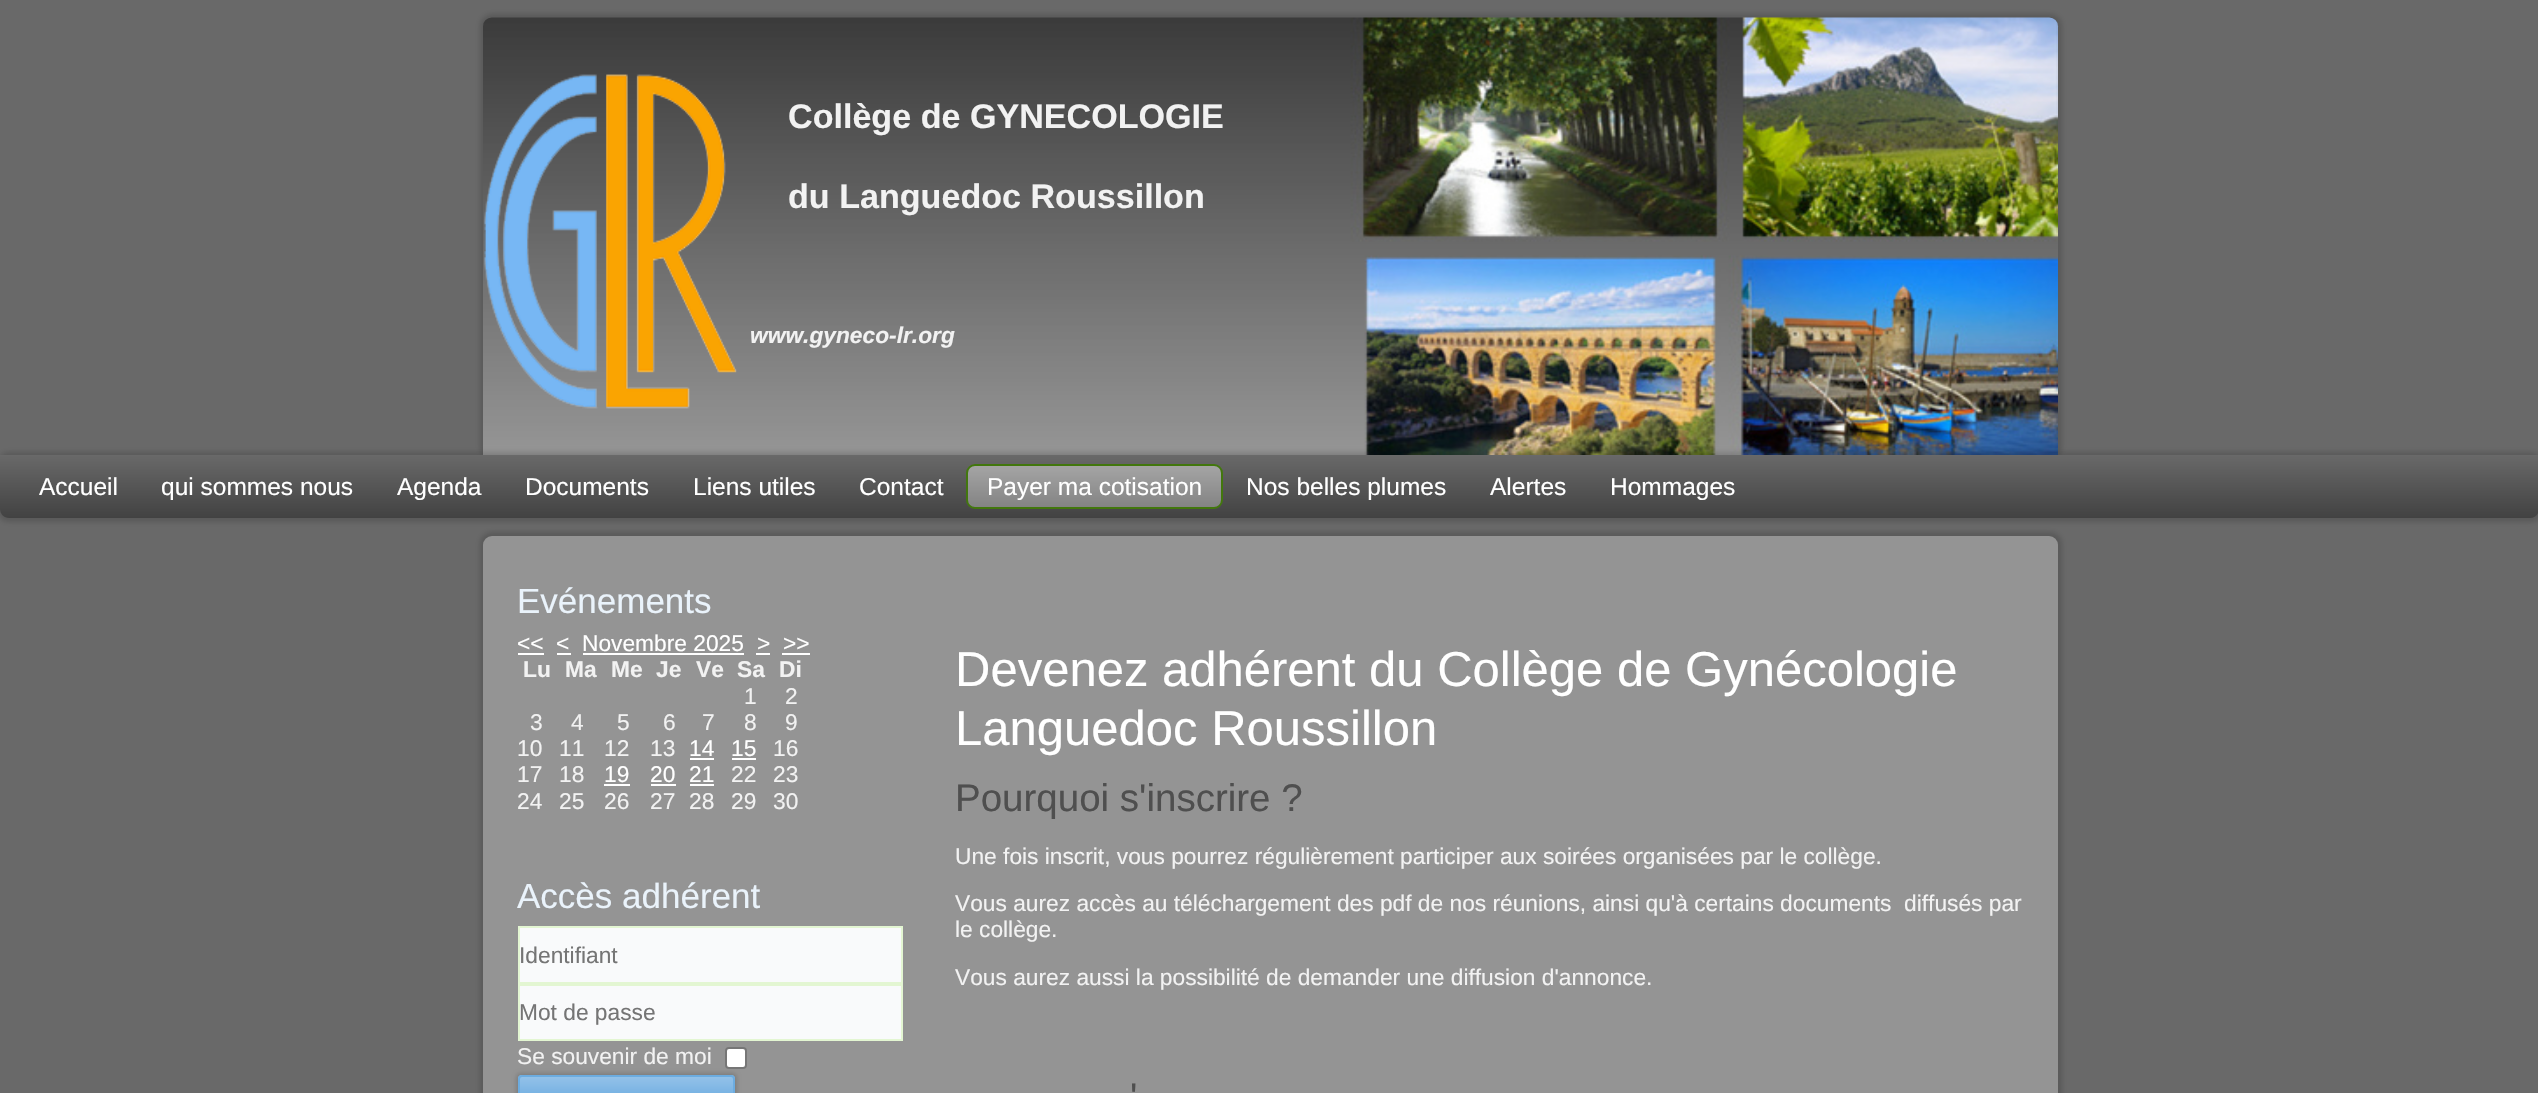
#include "include/core/SkBlurTypes.h"
#include "include/core/SkCanvas.h"
#include "include/core/SkData.h"
#include "include/core/SkFont.h"
#include "include/core/SkFontMgr.h"
#include "include/core/SkImage.h"
#include "include/core/SkMaskFilter.h"
#include "include/core/SkPaint.h"
#include "include/core/SkPathBuilder.h"
#include "include/core/SkTextBlob.h"
#include "include/effects/SkDashPathEffect.h"
#include "include/effects/SkGradientShader.h"
#include "include/utils/SkParsePath.h"

extern sk_sp<SkFontMgr> fontMgr;

static SkFont font(const char* family, int weight, float size, bool italic = false) {
    SkFontStyle style(weight, SkFontStyle::kNormal_Width,
        italic ? SkFontStyle::kItalic_Slant : SkFontStyle::kUpright_Slant);
    SkFont result(fontMgr->matchFamilyStyle(family, style), size);
    result.setSubpixel(true);
    return result;
}

static void drawLabel(SkCanvas* canvas, const char* s, float x, float y, const SkFont& font, SkColor color) {
    SkPaint ink(SkColor4f::FromColor(color));
    ink.setAntiAlias(true);
    canvas->drawString(s, x, y, font, ink);
}

static void fillRect(SkCanvas* canvas, float x, float y, float w, float h, SkColor color) {
    SkPaint ink(SkColor4f::FromColor(color));
    ink.setAntiAlias(true);
    canvas->drawRect(SkRect::MakeXYWH(x, y, w, h), ink);
}

static void fillRRect(SkCanvas* canvas, float x, float y, float w, float h, float radius, SkColor color) {
    SkPaint ink(SkColor4f::FromColor(color));
    ink.setAntiAlias(true);
    canvas->drawRoundRect(SkRect::MakeXYWH(x, y, w, h), radius, radius, ink);
}

static void drawPhoto(SkCanvas* canvas, const char* path, float x, float y, float w, float h) {
    auto image = SkImages::DeferredFromEncodedData(SkData::MakeFromFileName(path));
    canvas->drawImageRect(image, SkRect::MakeXYWH(x, y, w, h), SkSamplingOptions());
}

static SkPath parsePath(const char* data, bool evenOdd = false) {
    SkPath result = *SkParsePath::FromSVGString(data);
    if (evenOdd) result.setFillType(SkPathFillType::kEvenOdd);
    return result;
}

void draw(SkCanvas* canvas) {
    SkPaint paint;
    paint.setAntiAlias(true);
    canvas->clear(0xFF696969);
    paint.setColor(0x26000000);
    paint.setMaskFilter(SkMaskFilter::MakeBlur(kNormal_SkBlurStyle, 2.5f));
    canvas->drawRoundRect(SkRect::MakeXYWH(480, 14, 1582, 445), 12, 12, paint);
    paint.setMaskFilter(nullptr);
    drawPhoto(canvas, "assets/img1.png", 483, 17, 1576, 438);
    drawPhoto(canvas, "assets/img2.png", 484, 74, 253, 335);
    SkFont font1 = font("Liberation Sans", 700, 34.1f);
    drawLabel(canvas, "Collège de GYNECOLOGIE", 788, 128, font1, 0xFFF2F2F2);
    drawLabel(canvas, "du Languedoc Roussillon", 788, 208, font1, 0xFFF2F2F2);
    SkFont font2 = font("Liberation Sans", 700, 22.75f, true);
    drawLabel(canvas, "www.gyneco-lr.org", 750, 343, font2, 0xFFF2F2F2);
    paint.setMaskFilter(SkMaskFilter::MakeBlur(kNormal_SkBlurStyle, 2.5f));
    canvas->drawRoundRect(SkRect::MakeXYWH(-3, 452, 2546, 70), 12, 12, paint);
    paint.setMaskFilter(nullptr);
    {
        const SkColor colors[] = {0xFF696969, 0xFF424242};
        const float stops[] = {0, 1};
        const SkPoint ends[] = {{1270, 455}, {1270, 518}};
        paint.setShader(SkGradientShader::MakeLinear(ends, colors, stops, 2, SkTileMode::kClamp));
        paint.setAlpha(255);
    }
    canvas->drawPath(parsePath("M0 455H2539V509C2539 514 2535 518 2530 518H9C4 518 0 514 0 509Z"), paint);
    SkFont font3 = font("Liberation Sans", 400, 24.5f);
    drawLabel(canvas, "Accueil", 39, 495, font3, 0xFFFFFFFF);
    drawLabel(canvas, "qui sommes nous", 161, 495, font3, 0xFFFFFFFF);
    drawLabel(canvas, "Agenda", 397, 495, font3, 0xFFFFFFFF);
    drawLabel(canvas, "Documents", 525, 495, font3, 0xFFFFFFFF);
    drawLabel(canvas, "Liens utiles", 693, 495, font3, 0xFFFFFFFF);
    drawLabel(canvas, "Contact", 859, 495, font3, 0xFFFFFFFF);
    {
        const SkColor colors[] = {0xFFA6A6A6, 0xFF828282};
        const float stops[] = {0, 1};
        const SkPoint ends[] = {{1095, 464}, {1095, 509}};
        paint.setShader(SkGradientShader::MakeLinear(ends, colors, stops, 2, SkTileMode::kClamp));
        paint.setAlpha(255);
    }
    canvas->drawRoundRect(SkRect::MakeXYWH(967, 465, 255, 43), 8, 8, paint);
    paint.setStroke(true);
    paint.setStrokeWidth(2);
    paint.setShader(nullptr);
    paint.setColor(0xFF42770D);
    canvas->drawRoundRect(SkRect::MakeXYWH(967, 465, 255, 43), 8, 8, paint);
    drawLabel(canvas, "Payer ma cotisation", 987, 495, font3, 0xFFFFFFFF);
    drawLabel(canvas, "Nos belles plumes", 1246, 495, font3, 0xFFFFFFFF);
    drawLabel(canvas, "Alertes", 1490, 495, font3, 0xFFFFFFFF);
    drawLabel(canvas, "Hommages", 1610, 495, font3, 0xFFFFFFFF);
    paint.setStroke(false);
    paint.setColor(0x26000000);
    paint.setMaskFilter(SkMaskFilter::MakeBlur(kNormal_SkBlurStyle, 2.5f));
    canvas->drawRoundRect(SkRect::MakeXYWH(480, 532, 1582, 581), 12, 12, paint);
    paint.setMaskFilter(nullptr);
    fillRRect(canvas, 483, 536, 1575, 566, 9, 0xFF949494);
    SkFont font4 = font("Liberation Sans", 400, 35);
    drawLabel(canvas, "Evénements", 517, 613, font4, 0xFFEAF3FB);
    SkFont font5 = font("Liberation Sans", 400, 22.75f);
    drawLabel(canvas, "<<", 517, 651, font5, 0xFFFFFFFF);
    fillRect(canvas, 518, 653, 26, 2, 0xFFFFFFFF);
    drawLabel(canvas, "<", 556, 651, font5, 0xFFFFFFFF);
    fillRect(canvas, 557, 653, 14, 2, 0xFFFFFFFF);
    drawLabel(canvas, "Novembre 2025", 582, 651, font5, 0xFFFFFFFF);
    fillRect(canvas, 583, 653, 161, 2, 0xFFFFFFFF);
    drawLabel(canvas, ">", 757, 651, font5, 0xFFFFFFFF);
    fillRect(canvas, 756, 653, 14, 2, 0xFFFFFFFF);
    drawLabel(canvas, ">>", 783, 651, font5, 0xFFFFFFFF);
    fillRect(canvas, 782, 653, 28, 2, 0xFFFFFFFF);
    SkFont font6 = font("Liberation Sans", 700, 22.75f);
    drawLabel(canvas, "Lu", 523, 677, font6, 0xFFF2F2F2);
    drawLabel(canvas, "Ma", 565, 677, font6, 0xFFF2F2F2);
    drawLabel(canvas, "Me", 611, 677, font6, 0xFFF2F2F2);
    drawLabel(canvas, "Je", 656, 677, font6, 0xFFF2F2F2);
    drawLabel(canvas, "Ve", 696, 677, font6, 0xFFF2F2F2);
    drawLabel(canvas, "Sa", 737, 677, font6, 0xFFF2F2F2);
    drawLabel(canvas, "Di", 779, 677, font6, 0xFFF2F2F2);
    drawLabel(canvas, "1", 744, 704, font5, 0xFFF2F2F2);
    drawLabel(canvas, "2", 785, 704, font5, 0xFFF2F2F2);
    drawLabel(canvas, "3", 530, 730, font5, 0xFFF2F2F2);
    drawLabel(canvas, "4", 571, 730, font5, 0xFFF2F2F2);
    drawLabel(canvas, "5", 617, 730, font5, 0xFFF2F2F2);
    drawLabel(canvas, "6", 663, 730, font5, 0xFFF2F2F2);
    drawLabel(canvas, "7", 702, 730, font5, 0xFFF2F2F2);
    drawLabel(canvas, "8", 744, 730, font5, 0xFFF2F2F2);
    drawLabel(canvas, "9", 785, 730, font5, 0xFFF2F2F2);
    drawLabel(canvas, "10", 517, 756, font5, 0xFFF2F2F2);
    drawLabel(canvas, "11", 559, 756, font5, 0xFFF2F2F2);
    drawLabel(canvas, "12", 604, 756, font5, 0xFFF2F2F2);
    drawLabel(canvas, "13", 650, 756, font5, 0xFFF2F2F2);
    drawLabel(canvas, "14", 689, 756, font5, 0xFFFFFFFF);
    fillRect(canvas, 690, 758, 24, 2, 0xFFFFFFFF);
    drawLabel(canvas, "15", 731, 756, font5, 0xFFFFFFFF);
    fillRect(canvas, 732, 758, 24, 2, 0xFFFFFFFF);
    drawLabel(canvas, "16", 773, 756, font5, 0xFFF2F2F2);
    drawLabel(canvas, "17", 517, 782, font5, 0xFFF2F2F2);
    drawLabel(canvas, "18", 559, 782, font5, 0xFFF2F2F2);
    drawLabel(canvas, "19", 604, 782, font5, 0xFFFFFFFF);
    fillRect(canvas, 604, 784, 26, 2, 0xFFFFFFFF);
    drawLabel(canvas, "20", 650, 782, font5, 0xFFFFFFFF);
    fillRect(canvas, 651, 784, 25, 2, 0xFFFFFFFF);
    drawLabel(canvas, "21", 689, 782, font5, 0xFFFFFFFF);
    fillRect(canvas, 690, 784, 24, 2, 0xFFFFFFFF);
    drawLabel(canvas, "22", 731, 782, font5, 0xFFF2F2F2);
    drawLabel(canvas, "23", 773, 782, font5, 0xFFF2F2F2);
    drawLabel(canvas, "24", 517, 809, font5, 0xFFF2F2F2);
    drawLabel(canvas, "25", 559, 809, font5, 0xFFF2F2F2);
    drawLabel(canvas, "26", 604, 809, font5, 0xFFF2F2F2);
    drawLabel(canvas, "27", 650, 809, font5, 0xFFF2F2F2);
    drawLabel(canvas, "28", 689, 809, font5, 0xFFF2F2F2);
    drawLabel(canvas, "29", 731, 809, font5, 0xFFF2F2F2);
    drawLabel(canvas, "30", 773, 809, font5, 0xFFF2F2F2);
    drawLabel(canvas, "Accès adhérent", 517, 908, font4, 0xFFEAF3FB);
    paint.setColor(0xFFF9FAFB);
    canvas->drawRect(SkRect::MakeXYWH(519, 927, 383, 56), paint);
    paint.setStroke(true);
    paint.setColor(0xFFE3F6D2);
    canvas->drawRect(SkRect::MakeXYWH(519, 927, 383, 56), paint);
    drawLabel(canvas, "Identifiant", 519, 963, font5, 0xFF757575);
    paint.setStroke(false);
    paint.setColor(0xFFF9FAFB);
    canvas->drawRect(SkRect::MakeXYWH(519, 985, 383, 55), paint);
    paint.setStroke(true);
    paint.setColor(0xFFE3F6D2);
    canvas->drawRect(SkRect::MakeXYWH(519, 985, 383, 55), paint);
    drawLabel(canvas, "Mot de passe", 519, 1020, font5, 0xFF757575);
    drawLabel(canvas, "Se souvenir de moi", 517, 1064, font5, 0xFFF2F2F2);
    paint.setStroke(false);
    paint.setColor(0xFFFFFFFF);
    canvas->drawRoundRect(SkRect::MakeXYWH(726, 1048, 20, 20), 3, 3, paint);
    paint.setStroke(true);
    paint.setColor(0xFF767676);
    canvas->drawRoundRect(SkRect::MakeXYWH(726, 1048, 20, 20), 3, 3, paint);
    paint.setStroke(false);
    paint.setColor(0x26000000);
    paint.setMaskFilter(SkMaskFilter::MakeBlur(kNormal_SkBlurStyle, 2));
    canvas->drawRoundRect(SkRect::MakeXYWH(516, 1073, 221, 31), 5, 5, paint);
    paint.setMaskFilter(nullptr);
    {
        const SkColor colors[] = {0xFF96C3E9, 0xFF3D91D6};
        const float stops[] = {0, 1};
        const SkPoint ends[] = {{627, 1075}, {627, 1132}};
        paint.setShader(SkGradientShader::MakeLinear(ends, colors, stops, 2, SkTileMode::kClamp));
        paint.setAlpha(255);
    }
    canvas->drawRoundRect(SkRect::MakeXYWH(518, 1075, 217, 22), 4, 4, paint);
    paint.setStroke(true);
    paint.setShader(nullptr);
    paint.setColor(0xFF6CACE0);
    canvas->drawRoundRect(SkRect::MakeXYWH(519, 1076, 215, 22), 3, 3, paint);
    SkFont font7 = font("Liberation Sans", 400, 49);
    drawLabel(canvas, "Devenez adhérent du Collège de Gynécologie", 955, 686, font7, 0xFFFFFFFF);
    drawLabel(canvas, "Languedoc Roussillon", 955, 745, font7, 0xFFFFFFFF);
    SkFont font8 = font("Liberation Sans", 400, 38.5f);
    drawLabel(canvas, "Pourquoi s'inscrire ?", 955, 811, font8, 0xFF4F4F4F);
    drawLabel(canvas, "Une fois inscrit, vous pourrez régulièrement participer aux soirées organisées par le collège.", 955, 864, font5, 0xFFF2F2F2);
    drawLabel(canvas, "Vous aurez accès au téléchargement des pdf de nos réunions, ainsi qu'à certains documents  diffusés par", 955, 911, font5, 0xFFF2F2F2);
    drawLabel(canvas, "le collège.", 955, 937, font5, 0xFFF2F2F2);
    drawLabel(canvas, "Vous aurez aussi la possibilité de demander une diffusion d'annonce.", 955, 985, font5, 0xFFF2F2F2);
    drawLabel(canvas, "'", 1130, 1110, font8, 0xFF4F4F4F);
}
